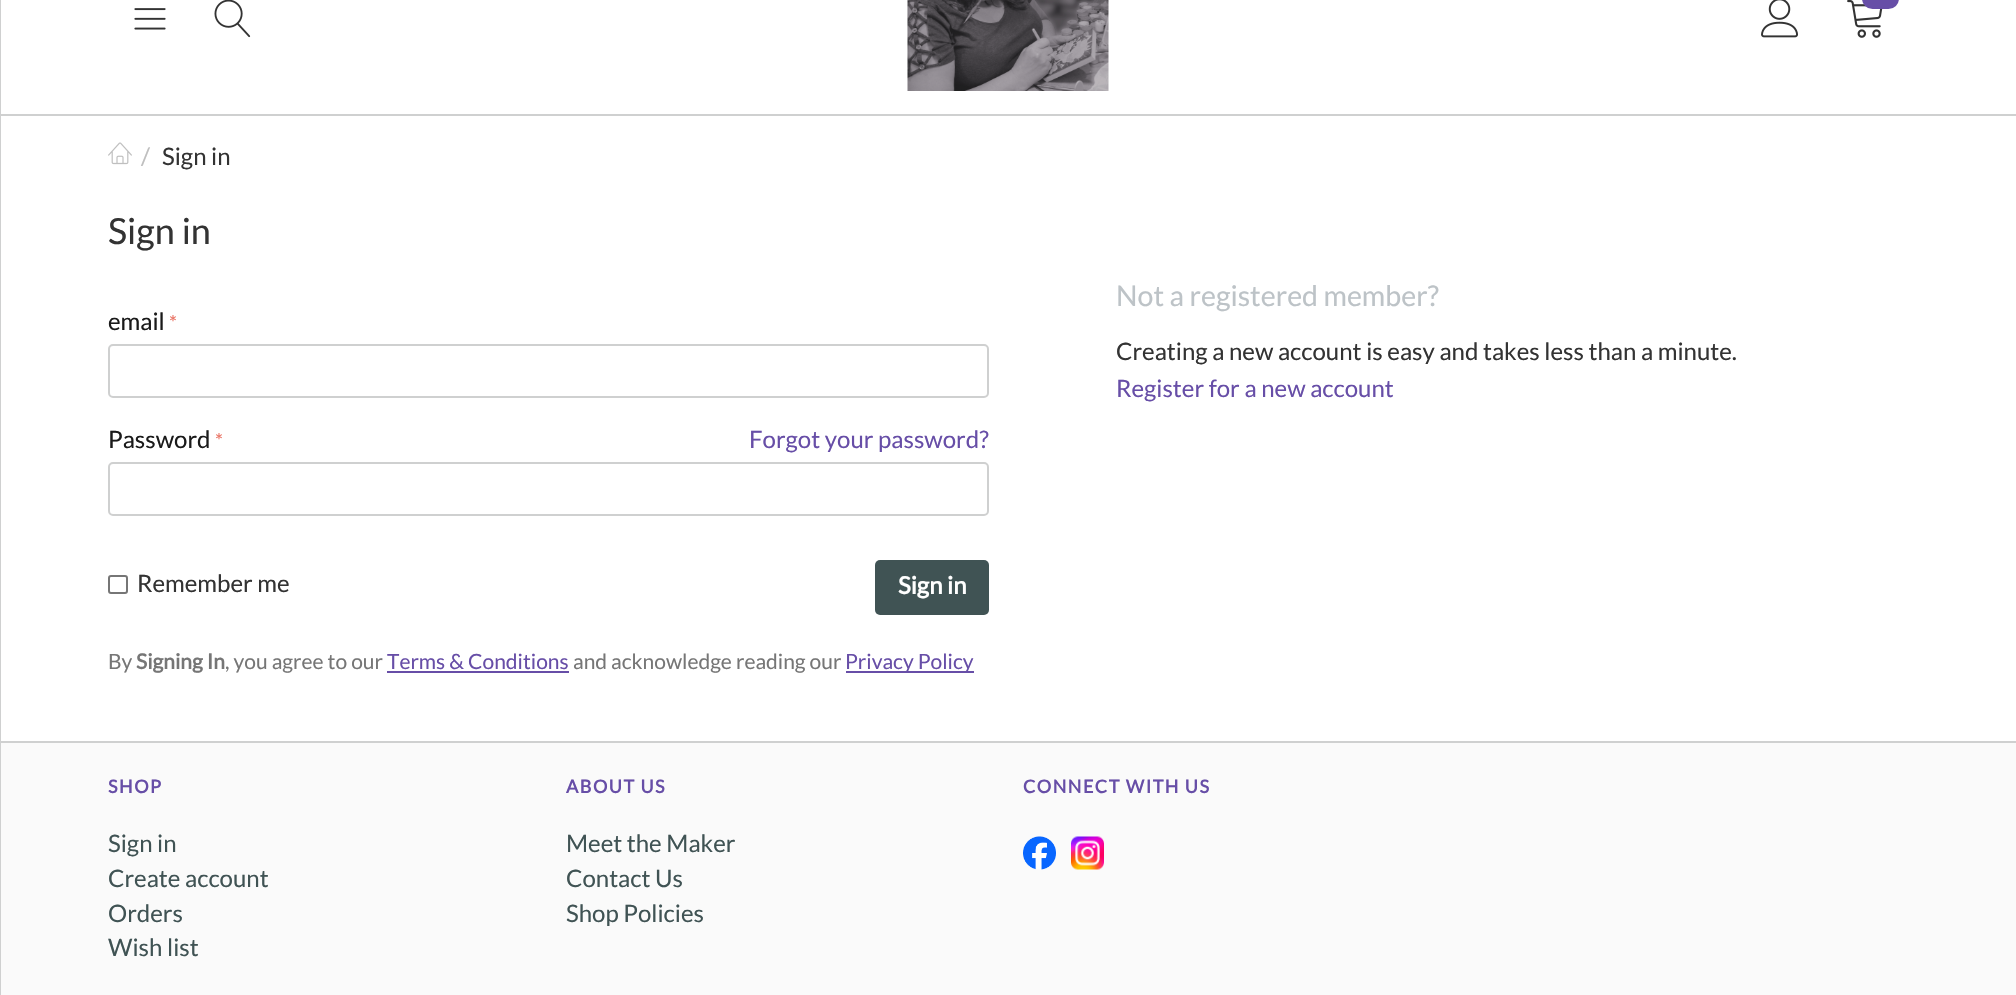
#include "include/core/SkBlurTypes.h"
#include "include/core/SkCanvas.h"
#include "include/core/SkData.h"
#include "include/core/SkFont.h"
#include "include/core/SkFontMgr.h"
#include "include/core/SkImage.h"
#include "include/core/SkMaskFilter.h"
#include "include/core/SkPaint.h"
#include "include/core/SkPathBuilder.h"
#include "include/core/SkTextBlob.h"
#include "include/effects/SkDashPathEffect.h"
#include "include/effects/SkGradientShader.h"
#include "include/utils/SkParsePath.h"

extern sk_sp<SkFontMgr> fontMgr;

static SkFont font(const char* family, int weight, float size, bool italic = false) {
    SkFontStyle style(weight, SkFontStyle::kNormal_Width,
        italic ? SkFontStyle::kItalic_Slant : SkFontStyle::kUpright_Slant);
    SkFont result(fontMgr->matchFamilyStyle(family, style), size);
    result.setSubpixel(true);
    return result;
}

static void drawLabel(SkCanvas* canvas, const char* s, float x, float y, const SkFont& font, SkColor color) {
    SkPaint ink(SkColor4f::FromColor(color));
    ink.setAntiAlias(true);
    canvas->drawString(s, x, y, font, ink);
}

static void drawTracked(SkCanvas* canvas, const char* s, float x, float y, const SkFont& font, const SkPaint& ink, float letter, float word) {
    std::vector<SkGlyphID> glyphs(font.countText(s, strlen(s), SkTextEncoding::kUTF8));
    std::vector<float> xs(glyphs.size());
    font.textToGlyphs(s, strlen(s), SkTextEncoding::kUTF8, glyphs);
    font.getXPos(glyphs, xs, x);
    float extra = 0;
    for (size_t i = 0; i < glyphs.size(); i++) {
        xs[i] += extra;
        extra += letter + word * (glyphs[i] == font.unicharToGlyph(' '));
    }
    canvas->drawTextBlob(SkTextBlob::MakeFromPosHGlyphs(glyphs, xs, y, font), 0, 0, ink);
}

static void fillRect(SkCanvas* canvas, float x, float y, float w, float h, SkColor color) {
    SkPaint ink(SkColor4f::FromColor(color));
    ink.setAntiAlias(true);
    canvas->drawRect(SkRect::MakeXYWH(x, y, w, h), ink);
}

static void fillRRect(SkCanvas* canvas, float x, float y, float w, float h, float radius, SkColor color) {
    SkPaint ink(SkColor4f::FromColor(color));
    ink.setAntiAlias(true);
    canvas->drawRoundRect(SkRect::MakeXYWH(x, y, w, h), radius, radius, ink);
}

static void drawPhoto(SkCanvas* canvas, const char* path, float x, float y, float w, float h) {
    auto image = SkImages::DeferredFromEncodedData(SkData::MakeFromFileName(path));
    canvas->drawImageRect(image, SkRect::MakeXYWH(x, y, w, h), SkSamplingOptions());
}

void draw(SkCanvas* canvas) {
    SkPaint paint;
    paint.setAntiAlias(true);
    canvas->clear(0xFFFFFFFF);
    fillRect(canvas, 0, 114, 2016, 2, 0xFFCFD0D0);
    fillRect(canvas, 0, 741, 2016, 2, 0xFFCFD0D0);
    fillRect(canvas, 0, 0, 1, 995, 0xFFCFD0D0);
    drawPhoto(canvas, "assets/img1.png", 134, 8, 32, 22);
    drawPhoto(canvas, "assets/img2.png", 214, 0, 37, 38);
    drawPhoto(canvas, "assets/img3.png", 907, 0, 202, 91);
    drawPhoto(canvas, "assets/img4.png", 1761, 0, 37, 38);
    drawPhoto(canvas, "assets/img5.png", 1847, 0, 36, 38);
    fillRRect(canvas, 1862, -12, 37, 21, 12, 0xFF674EA7);
    drawPhoto(canvas, "assets/img6.png", 108, 142, 24, 23);
    SkFont font1 = font("Lato", 400, 24);
    drawLabel(canvas, "/", 141, 165, font1, 0xFFBFBFBF);
    drawLabel(canvas, "Sign in", 162, 165, font1, 0xFF333333);
    SkFont font2 = font("Lato", 400, 36);
    drawLabel(canvas, "Sign in", 108, 244, font2, 0xFF333333);
    drawLabel(canvas, "email", 108, 330, font1, 0xFF1A1A1A);
    SkFont font3 = font("Lato", 400, 20);
    drawLabel(canvas, "*", 169, 330, font3, 0xFFEA7162);
    paint.setStroke(true);
    paint.setStrokeWidth(2);
    paint.setColor(0xFFCFD0D0);
    canvas->drawRoundRect(SkRect::MakeXYWH(109, 345, 879, 52), 4, 4, paint);
    drawLabel(canvas, "Password", 108, 448, font1, 0xFF1A1A1A);
    drawLabel(canvas, "*", 215, 448, font3, 0xFFEA7162);
    drawLabel(canvas, "Forgot your password?", 749, 448, font1, 0xFF674EA7);
    canvas->drawRoundRect(SkRect::MakeXYWH(109, 463, 879, 52), 4, 4, paint);
    paint.setColor(0xFF767676);
    canvas->drawRoundRect(SkRect::MakeXYWH(109, 576, 18, 17), 2, 2, paint);
    drawLabel(canvas, "Remember me", 137, 592, font1, 0xFF333333);
    fillRRect(canvas, 875, 560, 114, 55, 5, 0xFF405354);
    SkFont font4 = font("Lato", 700, 24);
    drawLabel(canvas, "Sign in", 898, 594, font4, 0xFFFFFFFF);
    SkFont font5 = font("Lato", 400, 21);
    drawLabel(canvas, "By", 108, 669, font5, 0xFF767676);
    SkFont font6 = font("Lato", 700, 21);
    drawLabel(canvas, "Signing In", 136, 669, font6, 0xFF767676);
    drawLabel(canvas, ", you agree to our", 225, 669, font5, 0xFF767676);
    drawLabel(canvas, "Terms & Conditions", 387, 669, font5, 0xFF674EA7);
    fillRect(canvas, 387, 671, 182, 2, 0xFF674EA7);
    drawLabel(canvas, "and acknowledge reading our", 573, 669, font5, 0xFF767676);
    fillRect(canvas, 846, 671, 128, 2, 0xFF674EA7);
    drawLabel(canvas, "Privacy Policy", 845, 669, font5, 0xFF674EA7);
    SkFont font7 = font("Lato", 400, 28.5f);
    drawLabel(canvas, "Not a registered member?", 1116, 306, font7, 0xFFBDC3C7);
    drawLabel(canvas, "Creating a new account is easy and takes less than a minute.", 1116, 360, font1, 0xFF333333);
    drawLabel(canvas, "Register for a new account", 1116, 397, font1, 0xFF674EA7);
    fillRect(canvas, 1, 743, 2015, 252, 0xFFFAFAFA);
    SkFont font8 = font("Lato", 700, 18);
    paint.setStroke(false);
    paint.setColor(0xFF674EA7);
    drawTracked(canvas, "SHOP", 108, 793, font8, paint, 1.5f, 0);
    drawLabel(canvas, "Sign in", 108, 852, font1, 0xFF405354);
    drawLabel(canvas, "Create account", 108, 887, font1, 0xFF405354);
    drawLabel(canvas, "Orders", 108, 922, font1, 0xFF405354);
    drawLabel(canvas, "Wish list", 108, 956, font1, 0xFF405354);
    drawTracked(canvas, "ABOUT US", 566, 793, font8, paint, 1.5f, 0);
    drawLabel(canvas, "Meet the Maker", 566, 852, font1, 0xFF405354);
    drawLabel(canvas, "Contact Us", 566, 887, font1, 0xFF405354);
    drawLabel(canvas, "Shop Policies", 566, 922, font1, 0xFF405354);
    drawTracked(canvas, "CONNECT WITH US", 1023, 793, font8, paint, 1.5f, 0);
    drawPhoto(canvas, "assets/img7.png", 1023, 836, 33, 34);
    drawPhoto(canvas, "assets/img8.png", 1071, 836, 33, 34);
}
